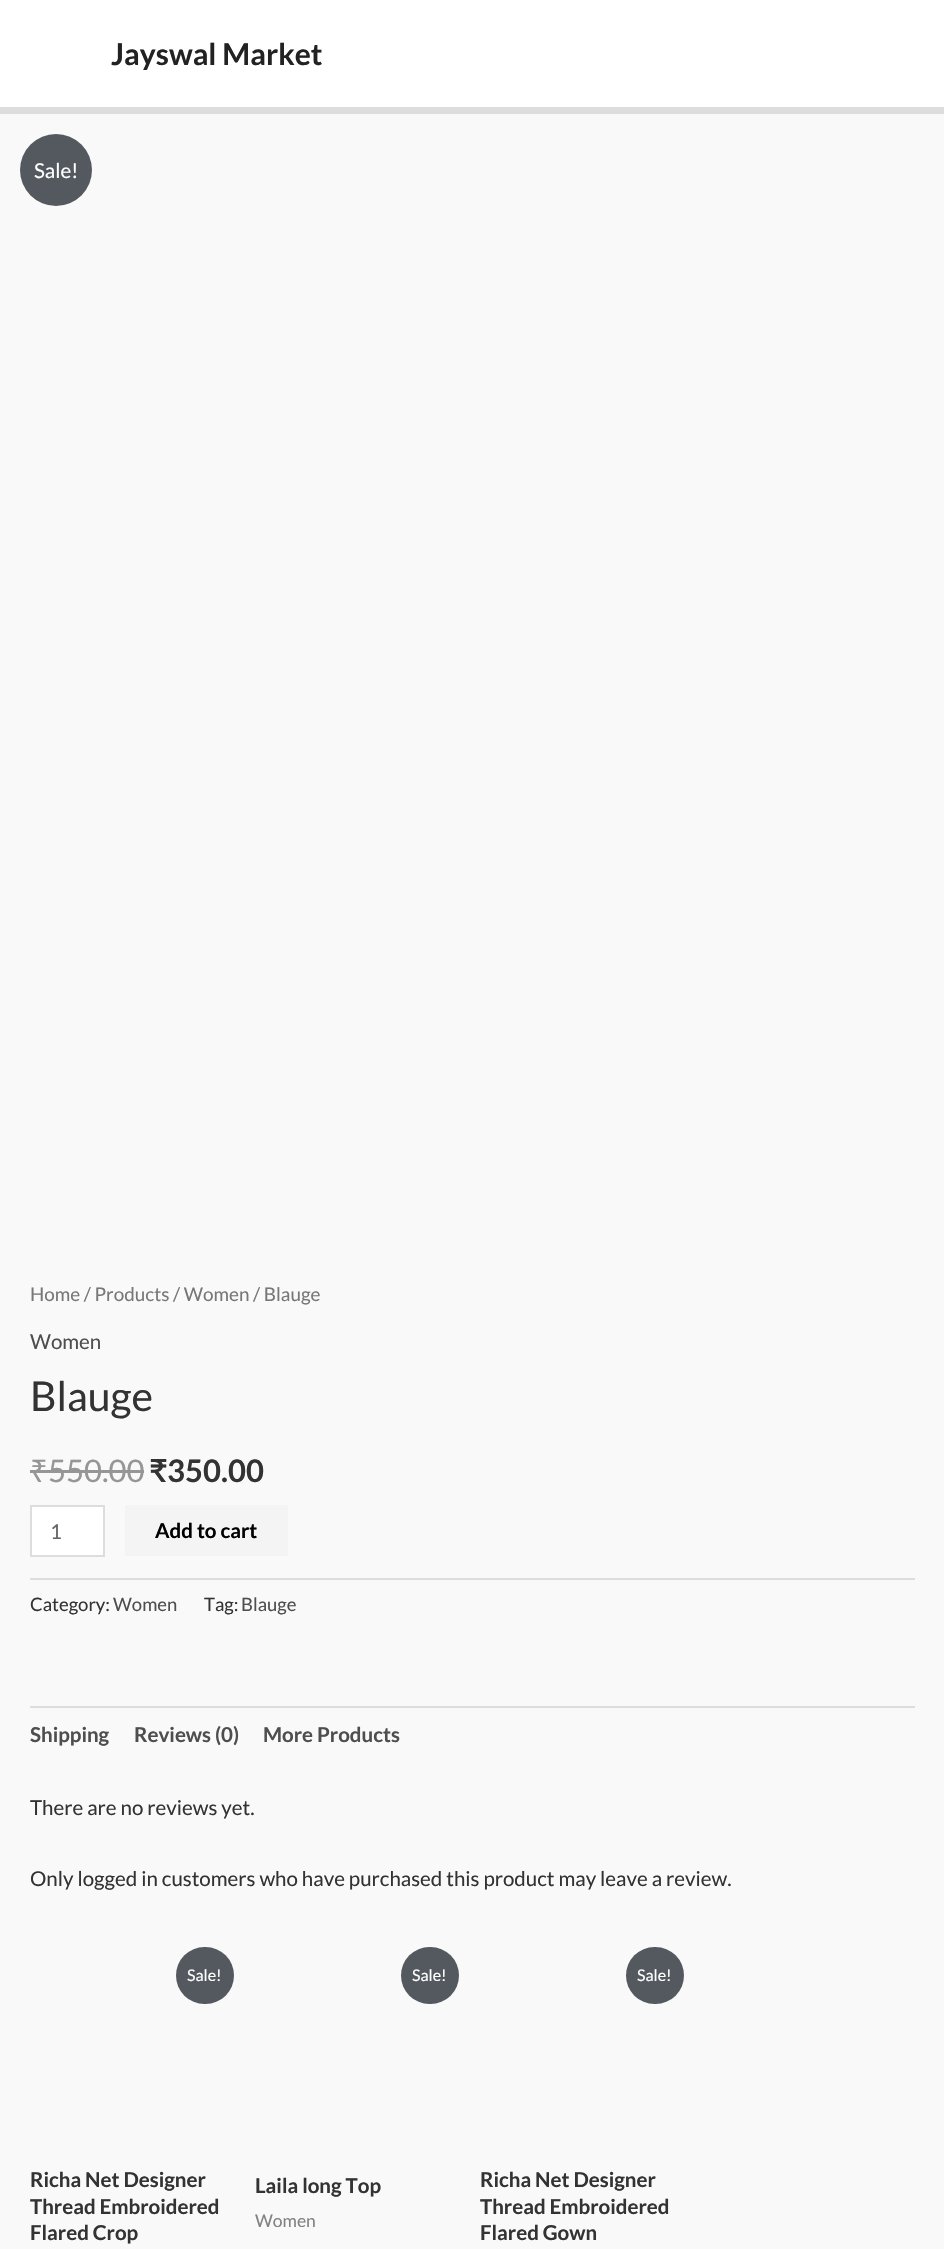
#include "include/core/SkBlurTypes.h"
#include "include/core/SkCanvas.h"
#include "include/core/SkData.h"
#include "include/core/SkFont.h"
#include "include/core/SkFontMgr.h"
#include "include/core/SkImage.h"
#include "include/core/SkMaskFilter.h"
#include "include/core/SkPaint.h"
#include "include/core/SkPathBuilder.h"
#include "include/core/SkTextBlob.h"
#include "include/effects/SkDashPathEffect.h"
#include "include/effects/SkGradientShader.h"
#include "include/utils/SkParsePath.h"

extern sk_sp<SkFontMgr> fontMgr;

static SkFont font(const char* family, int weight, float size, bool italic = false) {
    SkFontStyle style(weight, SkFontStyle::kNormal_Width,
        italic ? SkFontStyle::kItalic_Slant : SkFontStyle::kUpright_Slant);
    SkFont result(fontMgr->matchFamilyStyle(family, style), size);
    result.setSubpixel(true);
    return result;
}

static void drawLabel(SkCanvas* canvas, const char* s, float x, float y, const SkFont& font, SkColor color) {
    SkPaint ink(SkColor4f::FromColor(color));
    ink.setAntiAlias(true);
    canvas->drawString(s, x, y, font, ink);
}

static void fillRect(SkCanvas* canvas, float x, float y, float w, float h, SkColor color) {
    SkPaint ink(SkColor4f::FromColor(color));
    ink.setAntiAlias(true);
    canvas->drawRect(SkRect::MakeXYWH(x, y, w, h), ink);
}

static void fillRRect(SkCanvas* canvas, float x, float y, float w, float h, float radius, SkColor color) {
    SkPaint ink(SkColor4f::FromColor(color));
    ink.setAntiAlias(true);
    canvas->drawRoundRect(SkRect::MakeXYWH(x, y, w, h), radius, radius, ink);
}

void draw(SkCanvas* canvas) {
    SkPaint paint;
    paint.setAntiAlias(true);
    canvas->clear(0xFFF9F9F9);
    fillRect(canvas, 0, 0, 944, 107, 0xFFFFFFFF);
    fillRect(canvas, 0, 107, 944, 7, 0xFFDDDDDD);
    SkFont font1 = font("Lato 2", 700, 30);
    drawLabel(canvas, "Jayswal Market", 111, 65, font1, 0xFF222222);
    paint.setColor(0xFF54595F);
    canvas->drawCircle(56, 170, 36, paint);
    SkFont font2 = font("Lato", 400, 20.5f);
    drawLabel(canvas, "Sale!", 34, 178, font2, 0xFFFFFFFF);
    SkFont font3 = font("Lato", 400, 18.9f);
    drawLabel(canvas, "Home / Products / Women / Blauge", 30, 1301, font3, 0xFF777777);
    drawLabel(canvas, "Women", 30, 1349, font2, 0xFF4E4E4E);
    SkFont font4 = font("Lato", 400, 41);
    drawLabel(canvas, "Blauge", 30, 1411, font4, 0xFF333333);
    SkFont font5 = font("Noto Sans", 400, 31);
    drawLabel(canvas, "₹", 30, 1482, font5, 0xFF969696);
    fillRect(canvas, 30, 1470, 18, 3, 0xFF969696);
    SkFont font6 = font("Lato", 400, 31);
    drawLabel(canvas, "550.00", 48, 1482, font6, 0xFF969696);
    fillRect(canvas, 48, 1470, 96, 3, 0xFF969696);
    SkFont font7 = font("Lato", 700, 31);
    drawLabel(canvas, "₹", 149, 1482, font7, 0xFF333333);
    SkFont font8 = font("Lato 2", 700, 31);
    drawLabel(canvas, "350.00", 167, 1482, font8, 0xFF333333);
    paint.setColor(0xFFFFFFFF);
    canvas->drawRect(SkRect::MakeXYWH(31, 1506, 73, 50), paint);
    paint.setStroke(true);
    paint.setStrokeWidth(2);
    paint.setColor(0xFFDDDDDD);
    canvas->drawRect(SkRect::MakeXYWH(31, 1506, 73, 50), paint);
    drawLabel(canvas, "1", 50, 1539, font2, 0xFF666666);
    fillRect(canvas, 125, 1505, 163, 51, 0xFFF4F4F4);
    SkFont font9 = font("Lato 2", 700, 20.5f);
    drawLabel(canvas, "Add to cart", 155, 1538, font9, 0xFF000000);
    fillRect(canvas, 30, 1578, 885, 2, 0xFFDDDDDD);
    SkFont font10 = font("Lato", 400, 18.5f);
    drawLabel(canvas, "Category:", 30, 1611, font10, 0xFF333333);
    drawLabel(canvas, "Women", 113, 1611, font10, 0xFF4E4E4E);
    drawLabel(canvas, "Tag:", 204, 1611, font10, 0xFF333333);
    drawLabel(canvas, "Blauge", 241, 1611, font10, 0xFF4E4E4E);
    fillRect(canvas, 30, 1706, 885, 2, 0xFFDDDDDD);
    drawLabel(canvas, "Shipping", 30, 1742, font9, 0xFF4E4E4E);
    drawLabel(canvas, "Reviews (0)", 134, 1742, font9, 0xFF4E4E4E);
    drawLabel(canvas, "More Products", 263, 1742, font9, 0xFF4E4E4E);
    drawLabel(canvas, "There are no reviews yet.", 30, 1815, font2, 0xFF333333);
    drawLabel(canvas, "Only logged in customers who have purchased this product may leave a review.", 30, 1886, font2, 0xFF333333);
    fillRRect(canvas, 176, 1947, 58, 57, 28.5f, 0xFF54595F);
    SkFont font11 = font("Lato", 400, 16);
    drawLabel(canvas, "Sale!", 187, 1981, font11, 0xFFFFFFFF);
    drawLabel(canvas, "Richa Net Designer", 30, 2187, font9, 0xFF333333);
    drawLabel(canvas, "Thread Embroidered", 30, 2214, font9, 0xFF333333);
    drawLabel(canvas, "Flared Crop", 30, 2240, font9, 0xFF333333);
    fillRRect(canvas, 401, 1947, 58, 57, 28.5f, 0xFF54595F);
    drawLabel(canvas, "Sale!", 412, 1981, font11, 0xFFFFFFFF);
    drawLabel(canvas, "Laila long Top", 255, 2193, font9, 0xFF333333);
    SkFont font12 = font("Lato", 400, 17.5f);
    drawLabel(canvas, "Women", 255, 2227, font12, 0xFF828282);
    fillRRect(canvas, 626, 1947, 58, 57, 28.5f, 0xFF54595F);
    drawLabel(canvas, "Sale!", 637, 1981, font11, 0xFFFFFFFF);
    drawLabel(canvas, "Richa Net Designer", 480, 2187, font9, 0xFF333333);
    drawLabel(canvas, "Thread Embroidered", 480, 2214, font9, 0xFF333333);
    drawLabel(canvas, "Flared Gown", 480, 2240, font9, 0xFF333333);
}
